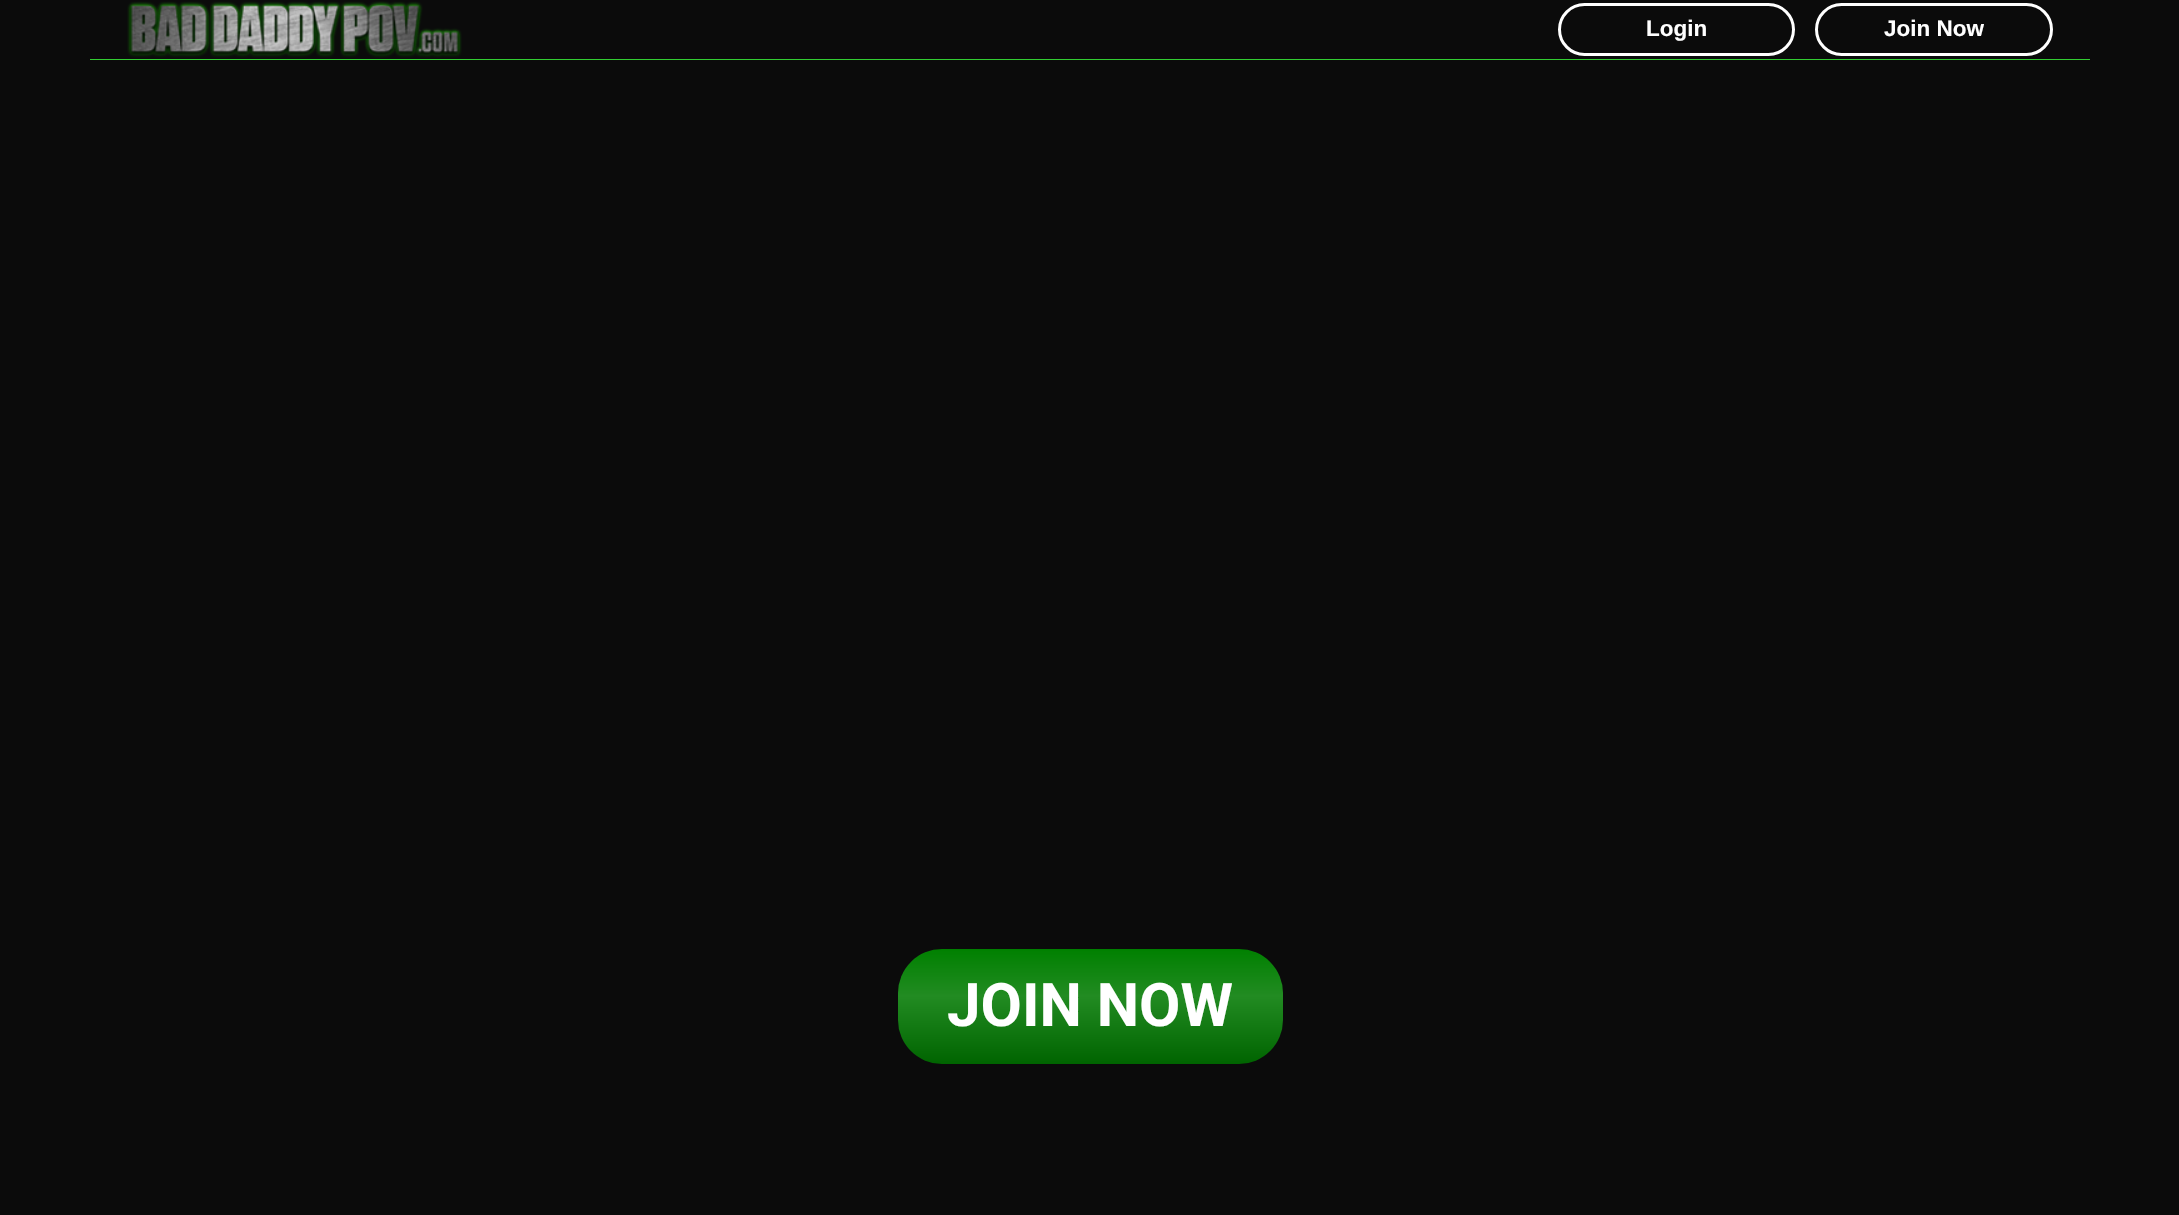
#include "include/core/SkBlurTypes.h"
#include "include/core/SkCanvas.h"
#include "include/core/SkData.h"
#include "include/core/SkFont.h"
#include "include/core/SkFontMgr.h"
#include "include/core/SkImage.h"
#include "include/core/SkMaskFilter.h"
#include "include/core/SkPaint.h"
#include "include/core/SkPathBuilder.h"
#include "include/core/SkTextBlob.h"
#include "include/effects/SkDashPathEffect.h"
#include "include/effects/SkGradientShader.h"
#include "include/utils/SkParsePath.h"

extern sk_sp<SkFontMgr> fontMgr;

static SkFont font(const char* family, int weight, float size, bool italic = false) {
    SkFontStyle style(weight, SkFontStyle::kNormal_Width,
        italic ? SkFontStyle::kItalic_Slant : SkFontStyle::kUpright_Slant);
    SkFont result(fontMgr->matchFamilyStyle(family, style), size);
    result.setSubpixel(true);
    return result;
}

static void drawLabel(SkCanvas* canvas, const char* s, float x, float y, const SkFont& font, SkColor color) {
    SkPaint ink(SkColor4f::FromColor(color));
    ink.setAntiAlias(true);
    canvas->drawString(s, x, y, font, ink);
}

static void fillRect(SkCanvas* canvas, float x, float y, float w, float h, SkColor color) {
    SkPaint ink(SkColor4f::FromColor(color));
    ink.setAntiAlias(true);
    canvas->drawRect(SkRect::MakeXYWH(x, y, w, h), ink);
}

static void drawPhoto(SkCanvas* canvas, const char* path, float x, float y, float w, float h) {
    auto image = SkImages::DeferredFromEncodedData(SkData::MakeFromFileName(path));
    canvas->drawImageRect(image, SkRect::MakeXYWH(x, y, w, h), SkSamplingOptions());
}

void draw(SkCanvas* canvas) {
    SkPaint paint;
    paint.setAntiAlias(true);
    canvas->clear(0xFF0B0B0B);
    fillRect(canvas, 90, 59, 2000, 1, 0xFF32CD32);
    drawPhoto(canvas, "assets/img1.png", 127, 1, 335, 57);
    paint.setStroke(true);
    paint.setStrokeWidth(3);
    paint.setColor(0xFFFFFFFF);
    canvas->drawRoundRect(SkRect::MakeXYWH(1559.5f, 4.5f, 234, 50), 25, 25, paint);
    SkFont font1 = font("Liberation Sans", 700, 22.5f);
    drawLabel(canvas, "Login", 1646, 36, font1, 0xFFFFFFFF);
    canvas->drawRoundRect(SkRect::MakeXYWH(1816.5f, 4.5f, 235, 50), 25, 25, paint);
    drawLabel(canvas, "Join Now", 1884, 36, font1, 0xFFFFFFFF);
    paint.setStroke(false);
    {
        const SkColor colors[] = {0xFF008000, 0xFF228B22, 0xFF006400};
        const float stops[] = {0, 0.41f, 1};
        const SkPoint ends[] = {{1090, 949}, {1090, 1064}};
        paint.setShader(SkGradientShader::MakeLinear(ends, colors, stops, 3, SkTileMode::kClamp));
        paint.setAlpha(255);
    }
    canvas->drawRoundRect(SkRect::MakeXYWH(898, 949, 385, 115), 44, 44, paint);
    SkFont font2 = font("Roboto", 700, 60);
    drawLabel(canvas, "JOIN NOW", 947, 1026, font2, 0xFFFFFFFF);
}
